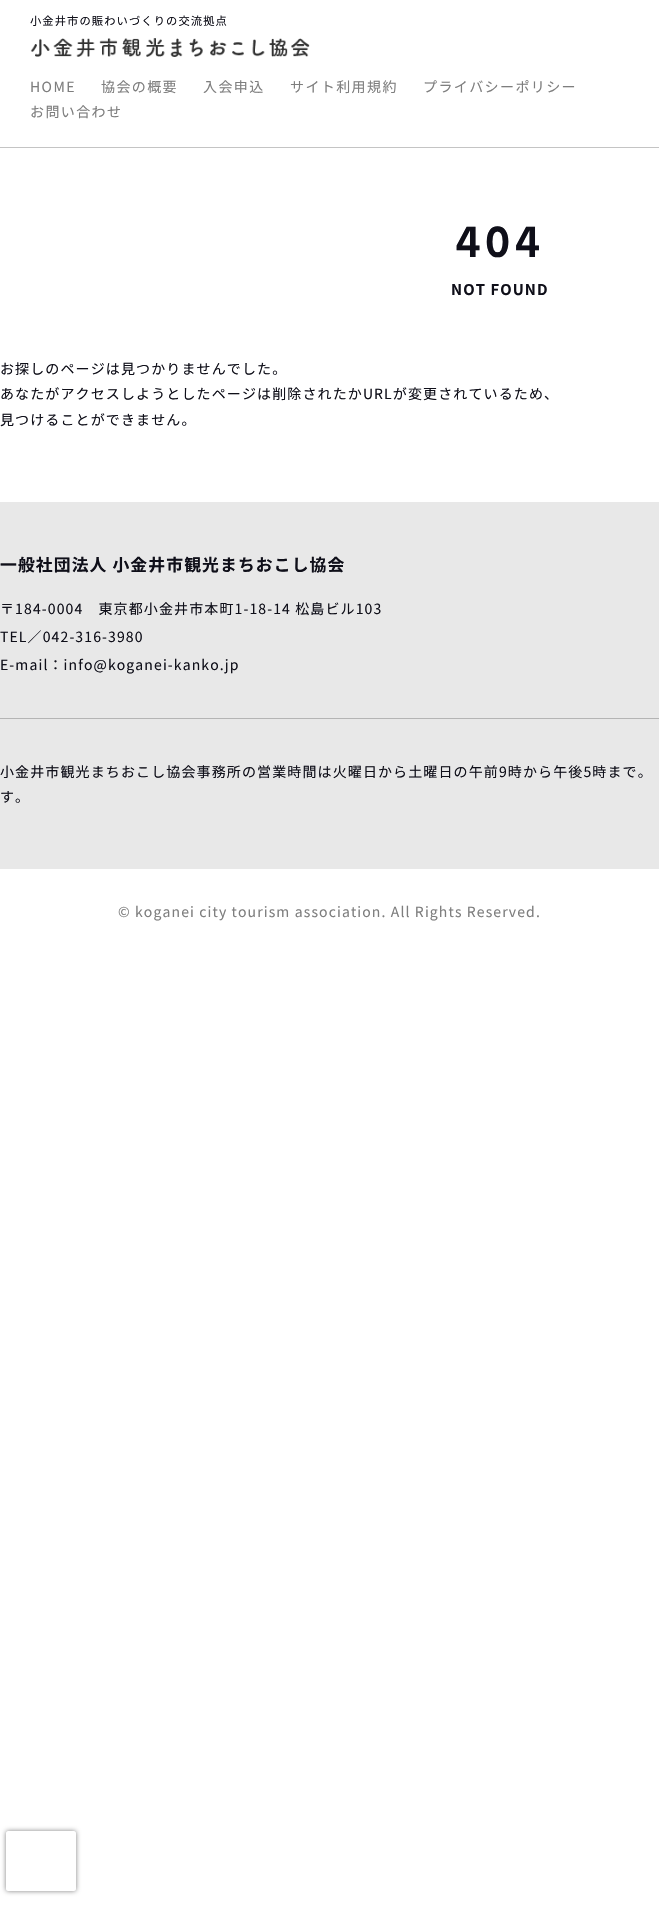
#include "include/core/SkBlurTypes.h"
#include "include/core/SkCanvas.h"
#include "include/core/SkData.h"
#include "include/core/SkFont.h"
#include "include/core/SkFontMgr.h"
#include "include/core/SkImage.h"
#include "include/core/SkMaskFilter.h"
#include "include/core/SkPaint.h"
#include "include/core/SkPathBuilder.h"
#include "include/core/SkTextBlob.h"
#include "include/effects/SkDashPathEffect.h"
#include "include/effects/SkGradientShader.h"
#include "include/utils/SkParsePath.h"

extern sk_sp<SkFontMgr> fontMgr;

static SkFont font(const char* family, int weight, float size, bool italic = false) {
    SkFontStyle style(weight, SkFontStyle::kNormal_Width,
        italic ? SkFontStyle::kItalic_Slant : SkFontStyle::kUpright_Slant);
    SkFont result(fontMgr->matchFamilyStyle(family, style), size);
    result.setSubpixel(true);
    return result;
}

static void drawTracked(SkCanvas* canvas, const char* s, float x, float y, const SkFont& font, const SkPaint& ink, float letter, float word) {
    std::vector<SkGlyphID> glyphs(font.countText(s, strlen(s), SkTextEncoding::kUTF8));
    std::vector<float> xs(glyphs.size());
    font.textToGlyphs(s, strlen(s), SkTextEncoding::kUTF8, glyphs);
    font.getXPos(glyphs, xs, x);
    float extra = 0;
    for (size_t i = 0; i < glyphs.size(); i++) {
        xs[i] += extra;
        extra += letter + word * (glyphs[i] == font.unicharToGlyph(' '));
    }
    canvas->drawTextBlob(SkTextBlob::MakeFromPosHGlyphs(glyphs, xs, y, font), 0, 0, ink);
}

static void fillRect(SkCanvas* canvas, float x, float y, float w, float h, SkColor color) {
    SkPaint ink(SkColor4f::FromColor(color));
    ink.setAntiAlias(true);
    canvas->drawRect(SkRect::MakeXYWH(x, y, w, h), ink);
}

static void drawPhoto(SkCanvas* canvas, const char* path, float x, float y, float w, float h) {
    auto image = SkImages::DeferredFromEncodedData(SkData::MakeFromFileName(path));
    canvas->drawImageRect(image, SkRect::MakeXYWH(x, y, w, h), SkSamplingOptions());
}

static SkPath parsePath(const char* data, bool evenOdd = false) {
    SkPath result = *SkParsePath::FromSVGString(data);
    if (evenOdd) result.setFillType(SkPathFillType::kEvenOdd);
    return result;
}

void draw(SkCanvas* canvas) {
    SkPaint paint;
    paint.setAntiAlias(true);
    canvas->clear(0xFFFFFFFF);
    fillRect(canvas, 0, 147, 659, 1, 0xFFC4C4C4);
    SkFont font1 = font("Noto Sans JP", 400, 11.25f);
    paint.setColor(0xFF0F0F19);
    drawTracked(canvas, "小金井市の賑わいづくりの交流拠点", 30, 25, font1, paint, 1.12f, 0);
    drawPhoto(canvas, "assets/img1.png", 30, 38, 280, 19);
    SkFont font2 = font("Noto Sans JP", 400, 14);
    paint.setColor(0xFF7E7E7E);
    drawTracked(canvas, "HOME", 30, 92, font2, paint, 1.4f, 0);
    drawTracked(canvas, "協会の概要", 101, 92, font2, paint, 1.4f, 0);
    drawTracked(canvas, "入会申込", 203, 92, font2, paint, 1.4f, 0);
    drawTracked(canvas, "サイト利用規約", 290, 92, font2, paint, 1.4f, 0);
    drawTracked(canvas, "プライバシーポリシー", 423, 92, font2, paint, 1.4f, 0);
    drawTracked(canvas, "お問い合わせ", 30, 117, font2, paint, 1.4f, 0);
    SkFont font3 = font("Hind", 600, 46);
    paint.setColor(0xFF0F0F19);
    drawTracked(canvas, "404", 455, 257, font3, paint, 4.5f, 0);
    SkFont font4 = font("Noto Sans JP", 700, 14.75f);
    drawTracked(canvas, "NOT FOUND", 451, 295, font4, paint, 1.12f, 0);
    drawTracked(canvas, "お探しのページは見つかりませんでした。", 0, 374, font2, paint, 1.12f, 0);
    drawTracked(canvas, "あなたがアクセスしようとしたページは削除されたかURLが変更されているため、", 0, 399, font2, paint, 1.12f, 0);
    drawTracked(canvas, "見つけることができません。", 0, 425, font2, paint, 1.12f, 0);
    fillRect(canvas, 0, 502, 659, 367, 0xFFE8E8E8);
    SkFont font5 = font("Noto Sans JP", 700, 16.8f);
    drawTracked(canvas, "一般社団法人 小金井市観光まちおこし協会", 0, 571, font5, paint, 1.12f, 0);
    drawTracked(canvas, "〒184-0004　東京都小金井市本町1-18-14 松島ビル103", 0, 614, font2, paint, 1.12f, 0);
    drawTracked(canvas, "TEL／042-316-3980", 0, 642, font2, paint, 1.12f, 0);
    drawTracked(canvas, "E-mail：info@koganei-kanko.jp", 0, 670, font2, paint, 1.12f, 0);
    fillRect(canvas, 0, 718, 659, 1, 0xFFB4B4B4);
    drawTracked(canvas, "小金井市観光まちおこし協会事務所の営業時間は火曜日から土曜日の午前9時から午後5時まで。", 0, 777, font2, paint, 1.12f, 0);
    drawTracked(canvas, "す。", 0, 802, font2, paint, 1.12f, 0);
    paint.setColor(0xFF7E7E7E);
    drawTracked(canvas, "© koganei city tourism association. All Rights Reserved.", 118, 917, font2, paint, 1.12f, 0);
    canvas->save();
    canvas->clipPath(parsePath("M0 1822H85V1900H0ZM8 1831H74C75 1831 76 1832 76 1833V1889C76 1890 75 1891 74 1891H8C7 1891 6 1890 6 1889V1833C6 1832 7 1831 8 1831Z", true), true);
    paint.setColor(0xFF808080);
    paint.setMaskFilter(SkMaskFilter::MakeBlur(kNormal_SkBlurStyle, 2.5f));
    canvas->drawRoundRect(SkRect::MakeXYWH(6, 1831, 70, 60), 2, 2, paint);
    paint.setMaskFilter(nullptr);
    canvas->restore();
}
